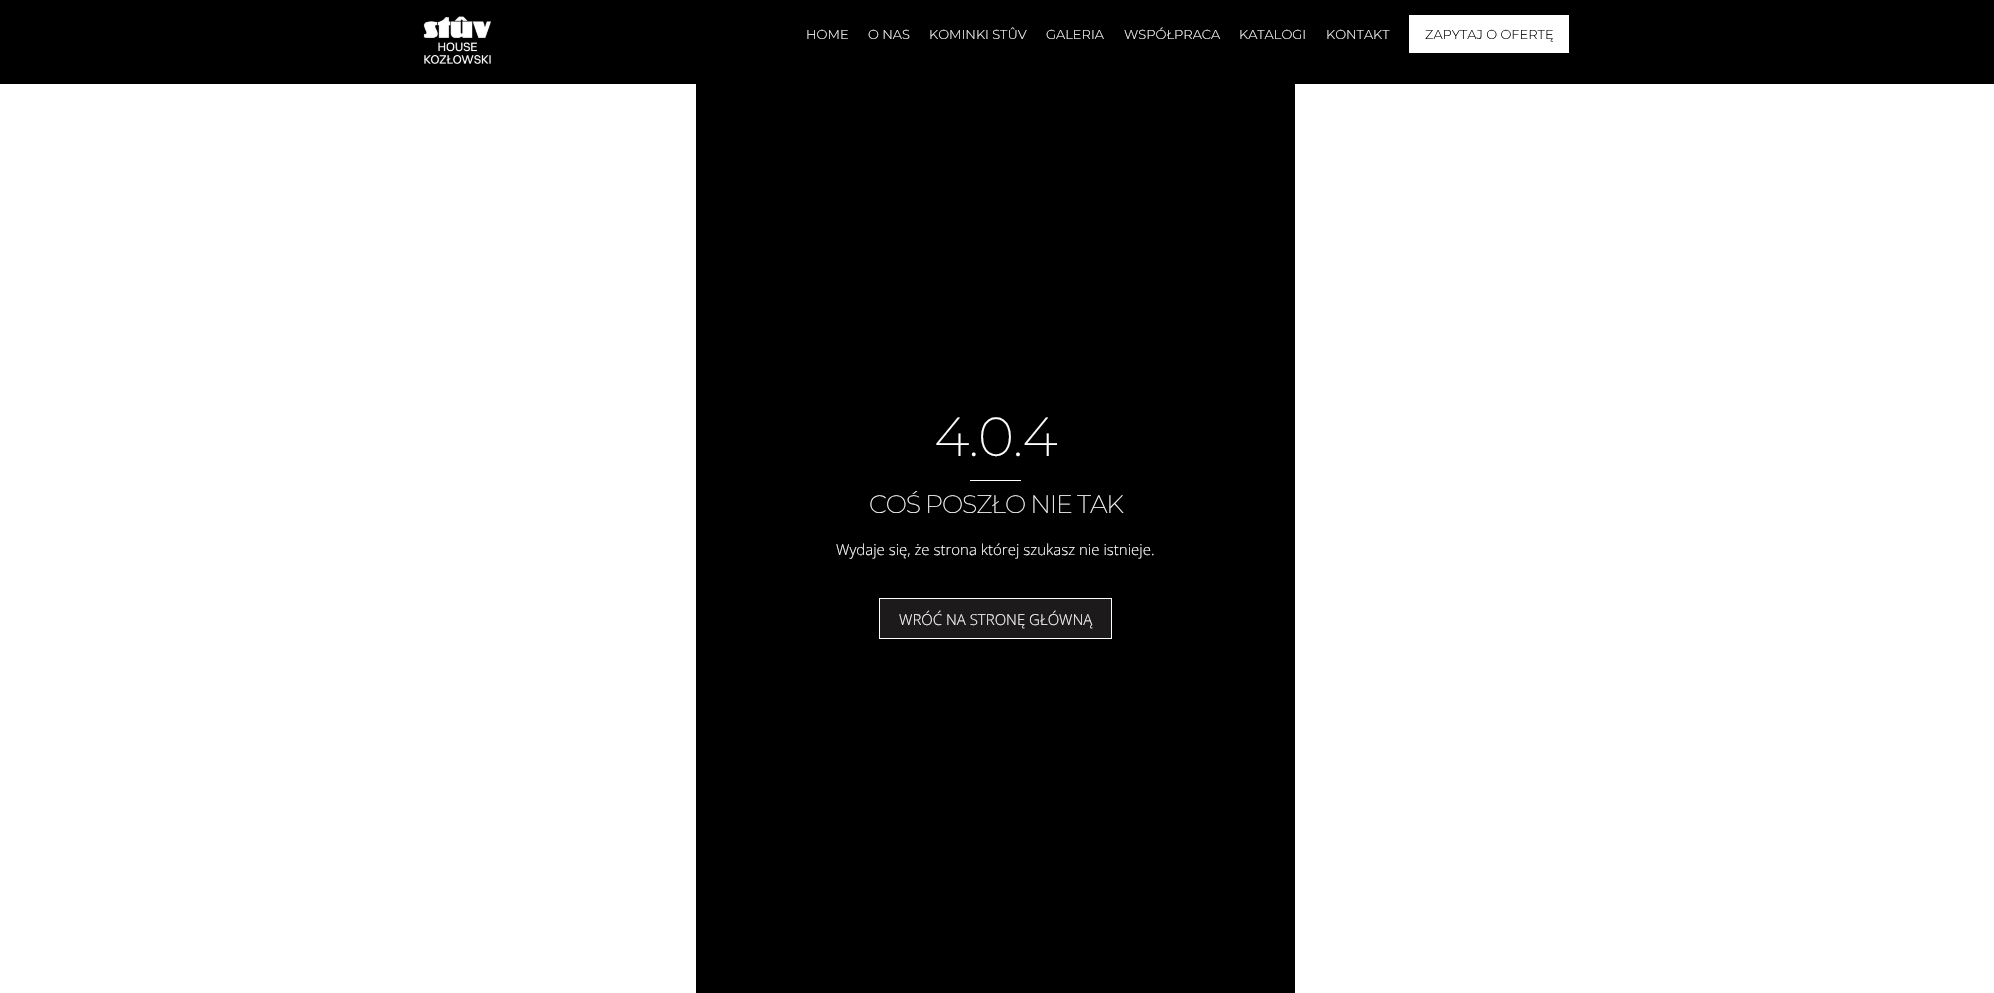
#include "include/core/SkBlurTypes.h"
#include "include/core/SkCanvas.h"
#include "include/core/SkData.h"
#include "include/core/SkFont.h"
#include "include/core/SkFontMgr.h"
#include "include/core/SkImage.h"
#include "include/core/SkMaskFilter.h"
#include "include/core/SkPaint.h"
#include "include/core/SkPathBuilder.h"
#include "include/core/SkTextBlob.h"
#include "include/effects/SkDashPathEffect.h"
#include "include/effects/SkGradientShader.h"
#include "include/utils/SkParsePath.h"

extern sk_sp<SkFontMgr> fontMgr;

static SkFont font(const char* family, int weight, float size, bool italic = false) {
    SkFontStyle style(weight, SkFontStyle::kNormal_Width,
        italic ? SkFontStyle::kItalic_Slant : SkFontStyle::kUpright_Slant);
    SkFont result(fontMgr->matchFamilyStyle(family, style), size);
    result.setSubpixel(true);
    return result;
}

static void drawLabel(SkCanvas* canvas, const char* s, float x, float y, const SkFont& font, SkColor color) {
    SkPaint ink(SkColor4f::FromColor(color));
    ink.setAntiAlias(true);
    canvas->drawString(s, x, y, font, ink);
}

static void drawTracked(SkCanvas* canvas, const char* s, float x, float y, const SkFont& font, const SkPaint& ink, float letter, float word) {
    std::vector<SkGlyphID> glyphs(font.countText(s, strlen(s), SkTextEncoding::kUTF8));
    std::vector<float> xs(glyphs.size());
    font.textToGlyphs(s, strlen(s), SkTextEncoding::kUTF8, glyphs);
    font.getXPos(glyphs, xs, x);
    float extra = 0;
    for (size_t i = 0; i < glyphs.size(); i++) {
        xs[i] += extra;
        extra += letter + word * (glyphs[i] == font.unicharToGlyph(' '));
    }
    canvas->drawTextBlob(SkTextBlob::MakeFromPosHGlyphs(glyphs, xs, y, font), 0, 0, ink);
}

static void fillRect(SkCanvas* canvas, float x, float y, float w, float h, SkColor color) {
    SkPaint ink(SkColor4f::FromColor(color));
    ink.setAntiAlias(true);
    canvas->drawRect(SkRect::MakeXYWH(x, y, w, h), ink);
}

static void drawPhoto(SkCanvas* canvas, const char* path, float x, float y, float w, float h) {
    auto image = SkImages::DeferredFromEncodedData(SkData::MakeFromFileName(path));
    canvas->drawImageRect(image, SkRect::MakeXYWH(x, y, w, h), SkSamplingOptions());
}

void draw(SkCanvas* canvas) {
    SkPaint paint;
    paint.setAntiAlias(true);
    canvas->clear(0xFFFFFFFF);
    fillRect(canvas, 0, 0, 1994, 84, 0xFF000000);
    drawPhoto(canvas, "assets/img1.png", 423, 16, 69, 48);
    SkFont font1 = font("Montserrat", 300, 13);
    drawLabel(canvas, "HOME", 806, 39, font1, 0xFFFFFFFF);
    drawLabel(canvas, "O NAS", 868, 39, font1, 0xFFFFFFFF);
    drawLabel(canvas, "KOMINKI STÛV", 929, 39, font1, 0xFFFFFFFF);
    drawLabel(canvas, "GALERIA", 1046, 39, font1, 0xFFFFFFFF);
    drawLabel(canvas, "WSPÓŁPRACA", 1124, 39, font1, 0xFFFFFFFF);
    drawLabel(canvas, "KATALOGI", 1239, 39, font1, 0xFFFFFFFF);
    drawLabel(canvas, "KONTAKT", 1326, 39, font1, 0xFFFFFFFF);
    fillRect(canvas, 1409, 15, 160, 38, 0xFFFFFFFF);
    drawLabel(canvas, "ZAPYTAJ O OFERTĘ", 1425, 39, font1, 0xFF000000);
    fillRect(canvas, 696, 84, 599, 909, 0xFF000000);
    SkFont font2 = font("Montserrat", 200, 55);
    paint.setColor(0xFFFFFFFF);
    drawTracked(canvas, "4.0.4", 934, 456, font2, paint, -1.1f, 0);
    fillRect(canvas, 970, 480, 51, 1, 0xFFFFFFFF);
    SkFont font3 = font("Montserrat", 200, 25.25f);
    drawTracked(canvas, "COŚ POSZŁO NIE TAK", 869, 513, font3, paint, -1.1f, 0);
    SkFont font4 = font("Open Sans", 300, 15);
    drawLabel(canvas, "Wydaje się, że strona której szukasz nie istnieje.", 836, 555, font4, 0xFFFFFFFF);
    paint.setColor(0xFF1C1A1A);
    canvas->drawRect(SkRect::MakeXYWH(879.5f, 598.5f, 232, 40), paint);
    paint.setStroke(true);
    paint.setStrokeWidth(1);
    paint.setColor(0xFFFFFFFF);
    canvas->drawRect(SkRect::MakeXYWH(879.5f, 598.5f, 232, 40), paint);
    drawLabel(canvas, "WRÓĆ NA STRONĘ GŁÓWNĄ", 899, 625, font4, 0xFFFFFFFF);
}
